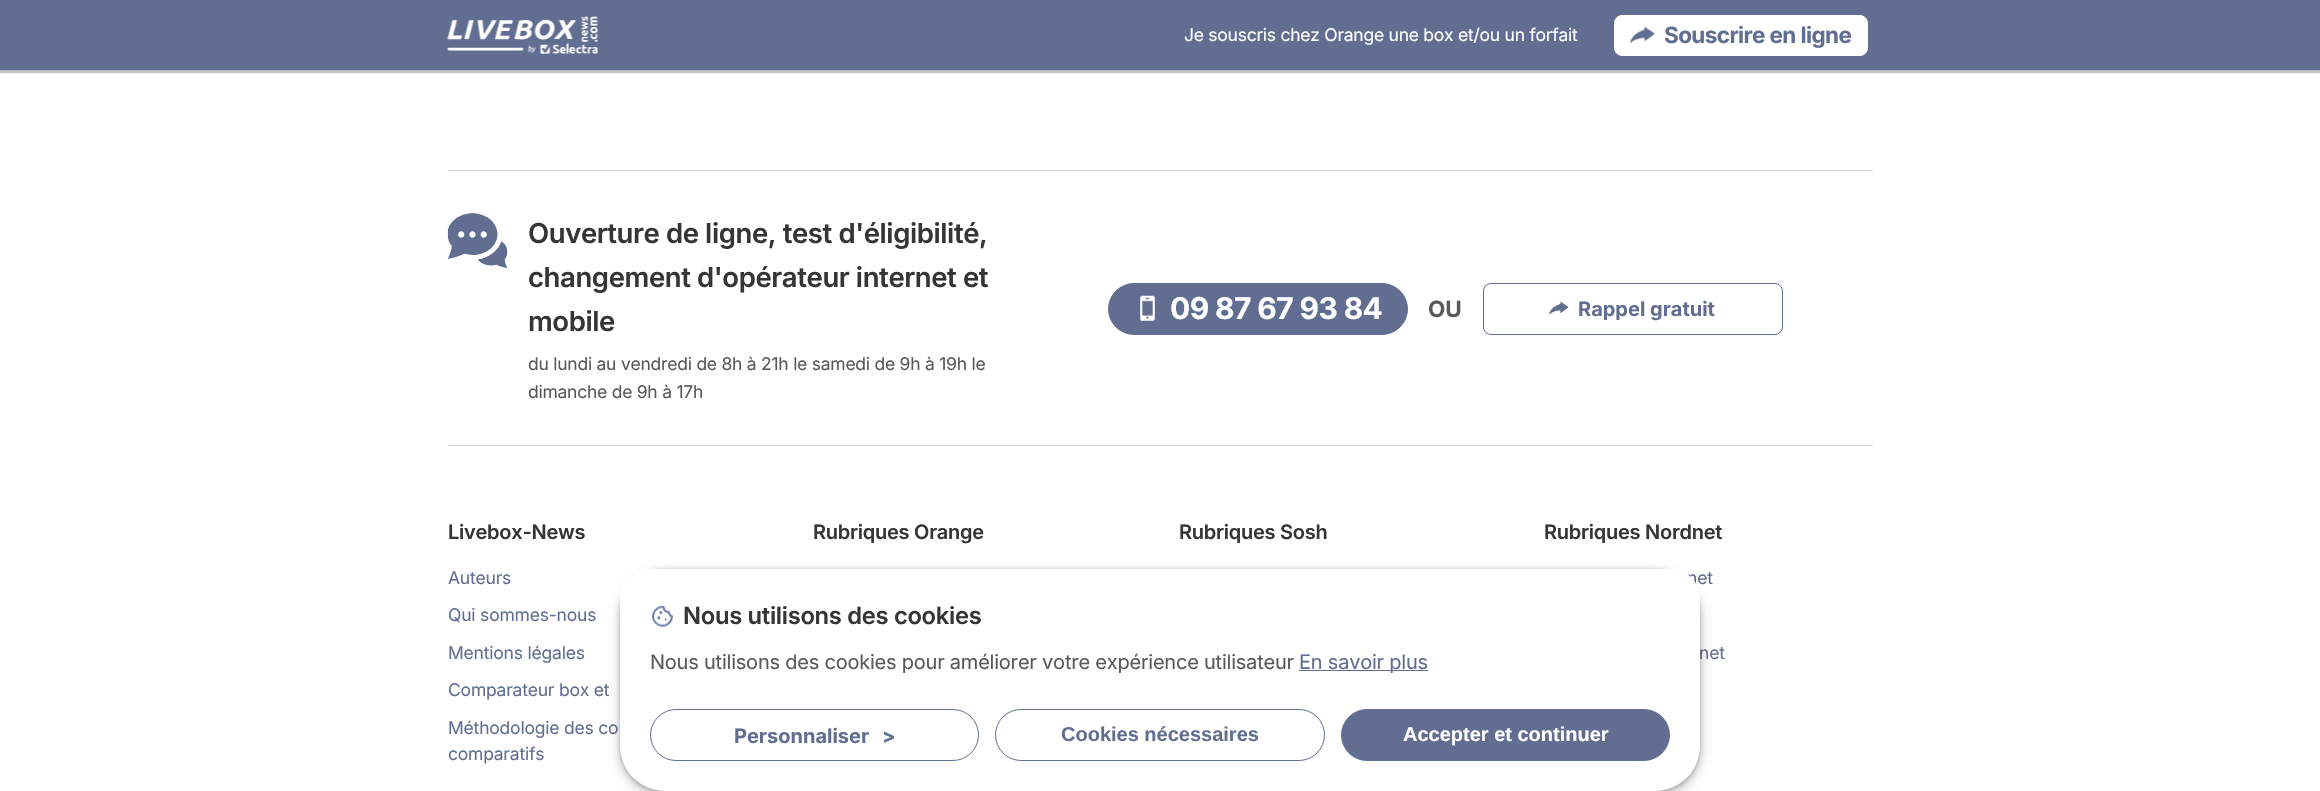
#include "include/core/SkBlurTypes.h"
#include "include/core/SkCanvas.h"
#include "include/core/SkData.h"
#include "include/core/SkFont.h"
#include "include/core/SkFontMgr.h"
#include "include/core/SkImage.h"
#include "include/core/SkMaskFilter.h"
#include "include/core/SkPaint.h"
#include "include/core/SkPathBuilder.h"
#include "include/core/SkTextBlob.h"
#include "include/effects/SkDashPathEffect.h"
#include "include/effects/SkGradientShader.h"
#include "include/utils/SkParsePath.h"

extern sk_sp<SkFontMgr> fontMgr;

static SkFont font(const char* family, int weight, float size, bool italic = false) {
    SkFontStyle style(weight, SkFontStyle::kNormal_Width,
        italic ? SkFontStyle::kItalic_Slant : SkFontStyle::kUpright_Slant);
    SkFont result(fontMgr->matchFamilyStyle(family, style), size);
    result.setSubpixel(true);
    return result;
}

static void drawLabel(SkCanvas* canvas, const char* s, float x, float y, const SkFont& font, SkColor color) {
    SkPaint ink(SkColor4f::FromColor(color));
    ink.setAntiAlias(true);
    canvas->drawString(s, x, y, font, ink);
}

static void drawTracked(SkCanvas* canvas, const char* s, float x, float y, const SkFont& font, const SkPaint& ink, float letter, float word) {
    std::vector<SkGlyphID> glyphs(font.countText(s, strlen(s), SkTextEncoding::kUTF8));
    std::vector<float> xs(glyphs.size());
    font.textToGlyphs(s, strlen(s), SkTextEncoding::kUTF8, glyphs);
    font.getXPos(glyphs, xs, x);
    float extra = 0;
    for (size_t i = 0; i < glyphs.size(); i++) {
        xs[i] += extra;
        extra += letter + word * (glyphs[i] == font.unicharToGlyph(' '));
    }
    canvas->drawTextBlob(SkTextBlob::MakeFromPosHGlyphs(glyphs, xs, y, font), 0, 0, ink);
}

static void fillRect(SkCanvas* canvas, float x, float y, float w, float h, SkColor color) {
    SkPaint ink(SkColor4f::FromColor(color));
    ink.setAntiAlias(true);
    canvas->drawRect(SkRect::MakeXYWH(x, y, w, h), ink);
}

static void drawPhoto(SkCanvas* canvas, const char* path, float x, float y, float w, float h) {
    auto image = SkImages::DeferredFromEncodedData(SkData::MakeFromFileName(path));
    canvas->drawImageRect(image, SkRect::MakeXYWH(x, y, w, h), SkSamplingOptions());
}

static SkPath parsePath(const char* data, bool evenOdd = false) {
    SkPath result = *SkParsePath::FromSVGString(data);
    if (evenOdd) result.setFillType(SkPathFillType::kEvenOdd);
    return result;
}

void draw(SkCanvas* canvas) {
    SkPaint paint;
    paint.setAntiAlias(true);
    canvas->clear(0xFFFFFFFF);
    paint.setColor(0x38000000);
    paint.setMaskFilter(SkMaskFilter::MakeBlur(kNormal_SkBlurStyle, 0.5f));
    canvas->drawRect(SkRect::MakeXYWH(0, 3, 2320, 70), paint);
    paint.setMaskFilter(nullptr);
    paint.setColor(0x14000000);
    paint.setMaskFilter(SkMaskFilter::MakeBlur(kNormal_SkBlurStyle, 0.5f));
    canvas->drawRect(SkRect::MakeXYWH(0, 1, 2320, 70), paint);
    paint.setMaskFilter(nullptr);
    fillRect(canvas, 0, 0, 2320, 70, 0xFF616E91);
    drawPhoto(canvas, "assets/img1.png", 447, 16, 151, 38);
    SkFont font1 = font("Inter", 400, 17.5f);
    paint.setColor(0xFFFFFFFF);
    drawTracked(canvas, "Je souscris chez Orange une box et/ou un forfait", 1184, 41, font1, paint, -0.25f, 0);
    canvas->drawRoundRect(SkRect::MakeXYWH(1614.5f, 15.5f, 253, 40), 7.5f, 7.5f, paint);
    paint.setStroke(true);
    paint.setStrokeWidth(1);
    canvas->drawRoundRect(SkRect::MakeXYWH(1614.5f, 15.5f, 253, 40), 7.5f, 7.5f, paint);
    drawPhoto(canvas, "assets/img2.png", 1630, 26, 25, 18);
    SkFont font2 = font("Inter", 700, 22.5f);
    paint.setStroke(false);
    paint.setColor(0xFF616E91);
    drawTracked(canvas, "Souscrire en ligne", 1664, 43, font2, paint, -0.6f, 0);
    fillRect(canvas, 448, 170, 1425, 1, 0xFFD6D7D8);
    drawPhoto(canvas, "assets/img3.png", 447, 213, 61, 56);
    SkFont font3 = font("Inter", 600, 27.5f);
    paint.setColor(0xFF343535);
    drawTracked(canvas, "Ouverture de ligne, test d'éligibilité,", 528, 243, font3, paint, -0.4f, 0);
    drawTracked(canvas, "changement d'opérateur internet et", 528, 287, font3, paint, -0.4f, 0);
    drawTracked(canvas, "mobile", 528, 331, font3, paint, -0.4f, 0);
    paint.setColor(0xFF58595B);
    drawTracked(canvas, "du lundi au vendredi de 8h à 21h le samedi de 9h à 19h le", 528, 370, font1, paint, -0.25f, 0);
    drawTracked(canvas, "dimanche de 9h à 17h", 528, 398, font1, paint, -0.25f, 0);
    paint.setColor(0xFF616E91);
    canvas->drawRoundRect(SkRect::MakeXYWH(1108.5f, 283.5f, 299, 51), 25.5f, 25.5f, paint);
    paint.setStroke(true);
    canvas->drawRoundRect(SkRect::MakeXYWH(1108.5f, 283.5f, 299, 51), 25.5f, 25.5f, paint);
    drawPhoto(canvas, "assets/img4.png", 1140, 295, 15, 26);
    SkFont font4 = font("Inter", 700, 30);
    paint.setStroke(false);
    paint.setColor(0xFFFFFFFF);
    drawTracked(canvas, "09 87 67 93 84", 1170, 319, font4, paint, -0.6f, 0);
    drawLabel(canvas, "OU", 1428, 317, font2, 0xFF58595B);
    paint.setStroke(true);
    paint.setColor(0xFF616E91);
    canvas->drawRoundRect(SkRect::MakeXYWH(1483.5f, 283.5f, 299, 51), 7.5f, 7.5f, paint);
    drawPhoto(canvas, "assets/img5.png", 1549, 301, 20, 14);
    SkFont font5 = font("Inter", 700, 20);
    drawLabel(canvas, "Rappel gratuit", 1578, 316, font5, 0xFF616E91);
    fillRect(canvas, 448, 445, 1425, 1, 0xFFD6D7D8);
    SkFont font6 = font("Inter", 600, 20);
    paint.setStroke(false);
    paint.setColor(0xFF343535);
    drawTracked(canvas, "Livebox-News", 448, 539, font6, paint, -0.25f, 0);
    paint.setColor(0xFF616E91);
    drawTracked(canvas, "Auteurs", 448, 584, font1, paint, -0.2f, 0);
    drawTracked(canvas, "Qui sommes-nous", 448, 621, font1, paint, -0.2f, 0);
    drawTracked(canvas, "Mentions légales", 448, 659, font1, paint, -0.2f, 0);
    drawTracked(canvas, "Comparateur box et", 448, 696, font1, paint, -0.2f, 0);
    drawTracked(canvas, "Méthodologie des co", 448, 734, font1, paint, -0.2f, 0);
    drawTracked(canvas, "comparatifs", 448, 760, font1, paint, -0.2f, 0);
    paint.setColor(0xFF343535);
    drawTracked(canvas, "Rubriques Orange", 813, 539, font6, paint, -0.25f, 0);
    drawTracked(canvas, "Rubriques Sosh", 1179, 539, font6, paint, -0.25f, 0);
    drawTracked(canvas, "Rubriques Nordnet", 1544, 539, font6, paint, -0.25f, 0);
    paint.setColor(0xFF616E91);
    drawTracked(canvas, "net", 1687, 584, font1, paint, -0.2f, 0);
    drawTracked(canvas, "net", 1699, 659, font1, paint, -0.2f, 0);
    paint.setColor(0x24000000);
    paint.setMaskFilter(SkMaskFilter::MakeBlur(kNormal_SkBlurStyle, 7.5f));
    canvas->drawRoundRect(SkRect::MakeXYWH(621, 575, 1078, 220), 44, 44, paint);
    paint.setMaskFilter(nullptr);
    paint.setColor(0x29000000);
    paint.setMaskFilter(SkMaskFilter::MakeBlur(kNormal_SkBlurStyle, 4));
    canvas->drawRoundRect(SkRect::MakeXYWH(621, 573, 1079, 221), 45, 45, paint);
    paint.setMaskFilter(nullptr);
    paint.setMaskFilter(SkMaskFilter::MakeBlur(kNormal_SkBlurStyle, 2));
    canvas->drawRoundRect(SkRect::MakeXYWH(620, 570, 1080, 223), 45, 45, paint);
    paint.setMaskFilter(nullptr);
    paint.setColor(0x2B000000);
    paint.setMaskFilter(SkMaskFilter::MakeBlur(kNormal_SkBlurStyle, 0.5f));
    canvas->drawRoundRect(SkRect::MakeXYWH(620, 569, 1080, 222), 45, 45, paint);
    paint.setMaskFilter(nullptr);
    paint.setColor(0xFFFFFFFF);
    canvas->drawPath(parsePath("M650 569H1670C1686.5 569 1700 582.5 1700 599V746C1700 771 1680 791 1655 791H665C640 791 620 771 620 746V599C620 582.5 633.5 569 650 569Z"), paint);
    canvas->drawPath(parsePath("M650 569H1670C1686.5 569 1700 582.5 1700 599V736C1700 766.5 1675.5 791 1645 791H675C644.5 791 620 766.5 620 736V599C620 582.5 633.5 569 650 569Z"), paint);
    drawPhoto(canvas, "assets/img6.png", 652, 605, 21, 22);
    SkFont font7 = font("Inter", 600, 23.75f);
    paint.setColor(0xFF343535);
    drawTracked(canvas, "Nous utilisons des cookies", 683, 624, font7, paint, -0.3f, 0);
    SkFont font8 = font("Inter", 400, 20);
    paint.setColor(0xFF58595B);
    drawTracked(canvas, "Nous utilisons des cookies pour améliorer votre expérience utilisateur", 650, 669, font8, paint, -0.22f, 0);
    fillRect(canvas, 1299, 670, 129, 1, 0xFF616E91);
    paint.setColor(0xFF616E91);
    drawTracked(canvas, "En savoir plus", 1299, 669, font8, paint, -0.22f, 0);
    paint.setStroke(true);
    canvas->drawRoundRect(SkRect::MakeXYWH(650.5f, 709.5f, 328, 51), 25.5f, 25.5f, paint);
    drawLabel(canvas, "Personnaliser", 734, 743, font5, 0xFF616E91);
    drawLabel(canvas, ">", 882, 743, font5, 0xFF616E91);
    canvas->drawRoundRect(SkRect::MakeXYWH(995.5f, 709.5f, 329, 51), 25.5f, 25.5f, paint);
    SkFont font9 = font("Liberation Sans", 700, 20);
    drawLabel(canvas, "Cookies nécessaires", 1061, 741, font9, 0xFF616E91);
    paint.setStroke(false);
    canvas->drawRoundRect(SkRect::MakeXYWH(1341.5f, 709.5f, 328, 51), 25.5f, 25.5f, paint);
    paint.setStroke(true);
    canvas->drawRoundRect(SkRect::MakeXYWH(1341.5f, 709.5f, 328, 51), 25.5f, 25.5f, paint);
    drawLabel(canvas, "Accepter et continuer", 1403, 741, font9, 0xFFFFFFFF);
}
